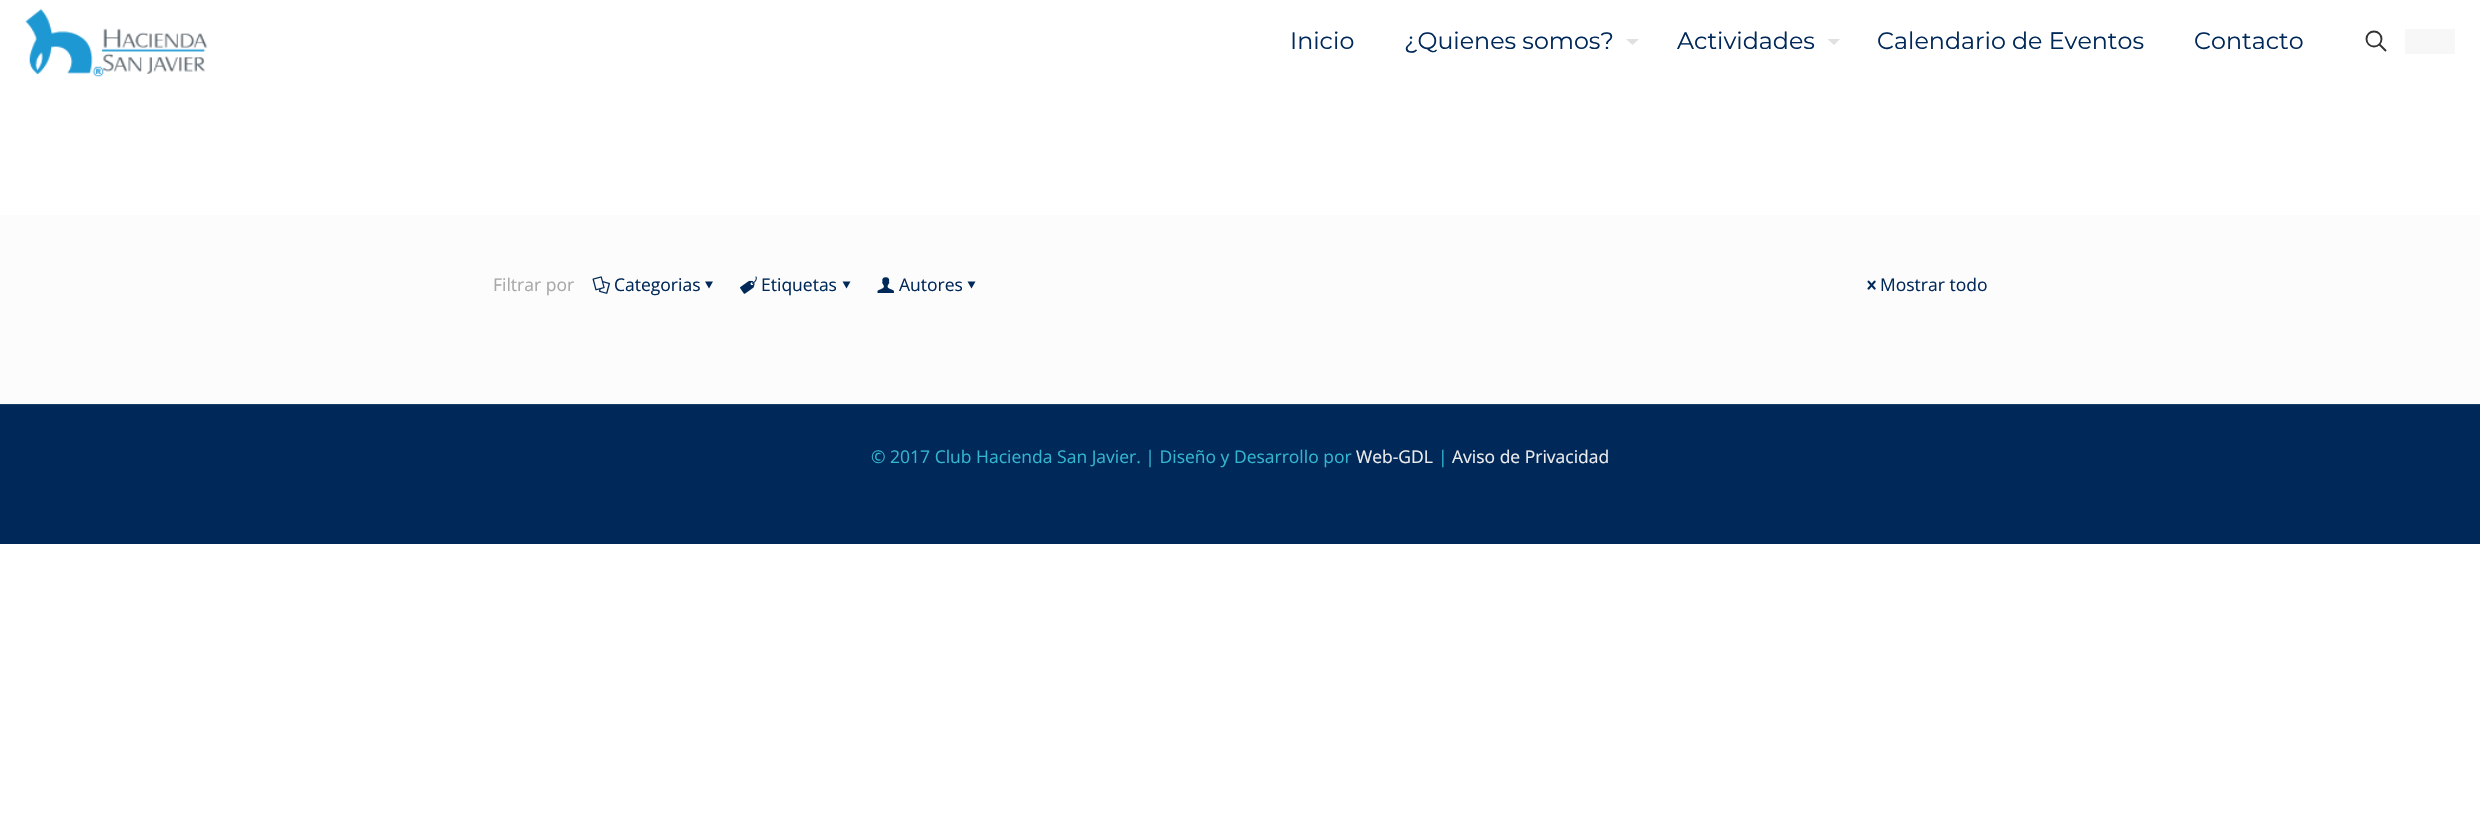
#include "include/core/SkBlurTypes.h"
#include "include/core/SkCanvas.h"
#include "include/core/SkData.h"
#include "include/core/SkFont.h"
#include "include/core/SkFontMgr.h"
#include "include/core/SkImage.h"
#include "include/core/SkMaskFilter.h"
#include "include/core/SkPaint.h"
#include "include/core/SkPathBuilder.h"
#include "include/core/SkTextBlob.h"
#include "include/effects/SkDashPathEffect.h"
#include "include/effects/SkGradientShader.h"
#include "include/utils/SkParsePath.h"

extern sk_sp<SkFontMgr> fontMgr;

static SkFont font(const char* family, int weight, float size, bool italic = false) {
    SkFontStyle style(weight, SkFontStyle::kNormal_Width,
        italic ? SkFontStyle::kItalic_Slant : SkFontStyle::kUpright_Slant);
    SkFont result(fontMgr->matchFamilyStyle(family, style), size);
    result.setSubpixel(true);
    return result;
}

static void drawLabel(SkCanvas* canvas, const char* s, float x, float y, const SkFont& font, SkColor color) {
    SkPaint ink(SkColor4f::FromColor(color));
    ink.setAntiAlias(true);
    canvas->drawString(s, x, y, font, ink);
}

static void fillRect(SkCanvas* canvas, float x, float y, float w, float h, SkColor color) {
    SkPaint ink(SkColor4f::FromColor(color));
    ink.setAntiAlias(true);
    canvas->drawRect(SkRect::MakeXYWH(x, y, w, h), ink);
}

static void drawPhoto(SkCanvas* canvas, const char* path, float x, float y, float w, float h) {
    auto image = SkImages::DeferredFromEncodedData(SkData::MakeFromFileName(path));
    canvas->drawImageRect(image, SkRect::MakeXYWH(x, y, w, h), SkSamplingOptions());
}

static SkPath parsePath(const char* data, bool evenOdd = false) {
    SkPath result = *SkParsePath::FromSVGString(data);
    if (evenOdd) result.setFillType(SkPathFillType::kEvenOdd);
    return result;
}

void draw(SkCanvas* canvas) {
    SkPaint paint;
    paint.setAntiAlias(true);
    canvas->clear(0xFFFFFFFF);
    fillRect(canvas, 0, 215, 2480, 189, 0xFFFCFCFC);
    drawPhoto(canvas, "assets/img1.png", 25, 8, 183, 69);
    SkFont font1 = font("Montserrat", 100, 23.75f);
    drawLabel(canvas, "Inicio", 1290, 49, font1, 0xFF002859);
    drawLabel(canvas, "¿Quienes somos?", 1404, 49, font1, 0xFF002859);
    paint.setColor(0xFFE0E0E0);
    canvas->drawPath(parsePath("M1626 39H1639L1632.5 45Z"), paint);
    drawLabel(canvas, "Actividades", 1677, 49, font1, 0xFF002859);
    canvas->drawPath(parsePath("M1827.5 39H1840L1834 45Z"), paint);
    drawLabel(canvas, "Calendario de Eventos", 1877, 49, font1, 0xFF002859);
    drawLabel(canvas, "Contacto", 2194, 49, font1, 0xFF002859);
    paint.setStroke(true);
    paint.setStrokeWidth(1.9f);
    paint.setColor(0xFF333333);
    canvas->drawCircle(2374, 39, 7.5f, paint);
    canvas->drawPath(parsePath("M2379.5 44.5L2386 51"), paint);
    fillRect(canvas, 2405, 29, 50, 25, 0xFFF7F7F7);
    SkFont font2 = font("Open Sans", 400, 17.5f);
    drawLabel(canvas, "Filtrar por", 493, 291, font2, 0xFFA8A8A8);
    drawPhoto(canvas, "assets/img2.png", 592, 276, 18, 18);
    drawLabel(canvas, "Categorias", 614, 291, font2, 0xFF002859);
    paint.setStroke(false);
    paint.setColor(0xFF002859);
    canvas->drawPath(parsePath("M713 281.5L709 288.5L705 281.5Z"), paint);
    drawPhoto(canvas, "assets/img3.png", 740, 276, 17, 18);
    drawLabel(canvas, "Etiquetas", 761, 291, font2, 0xFF002859);
    canvas->drawPath(parsePath("M850.5 281.5L846.5 288.5L842.5 281.5Z"), paint);
    drawPhoto(canvas, "assets/img4.png", 877, 277, 17, 16);
    drawLabel(canvas, "Autores", 899, 291, font2, 0xFF002859);
    canvas->drawPath(parsePath("M975.5 281.5L971.5 288.5L967.5 281.5Z"), paint);
    drawPhoto(canvas, "assets/img5.png", 1867, 280, 9, 10);
    drawLabel(canvas, "Mostrar todo", 1880, 291, font2, 0xFF002859);
    fillRect(canvas, 0, 405, 2480, 139, 0xFF002859);
    fillRect(canvas, 0, 404, 2480, 1, 0xFF1A3E6A);
    drawLabel(canvas, "© 2017 Club Hacienda San Javier. | Diseño y Desarrollo por", 871, 463, font2, 0xFF34B5D0);
    drawLabel(canvas, "Web-GDL", 1356, 463, font2, 0xFFEDEDED);
    drawLabel(canvas, "|", 1438, 463, font2, 0xFF34B5D0);
    drawLabel(canvas, "Aviso de Privacidad", 1452, 463, font2, 0xFFEDEDED);
}
